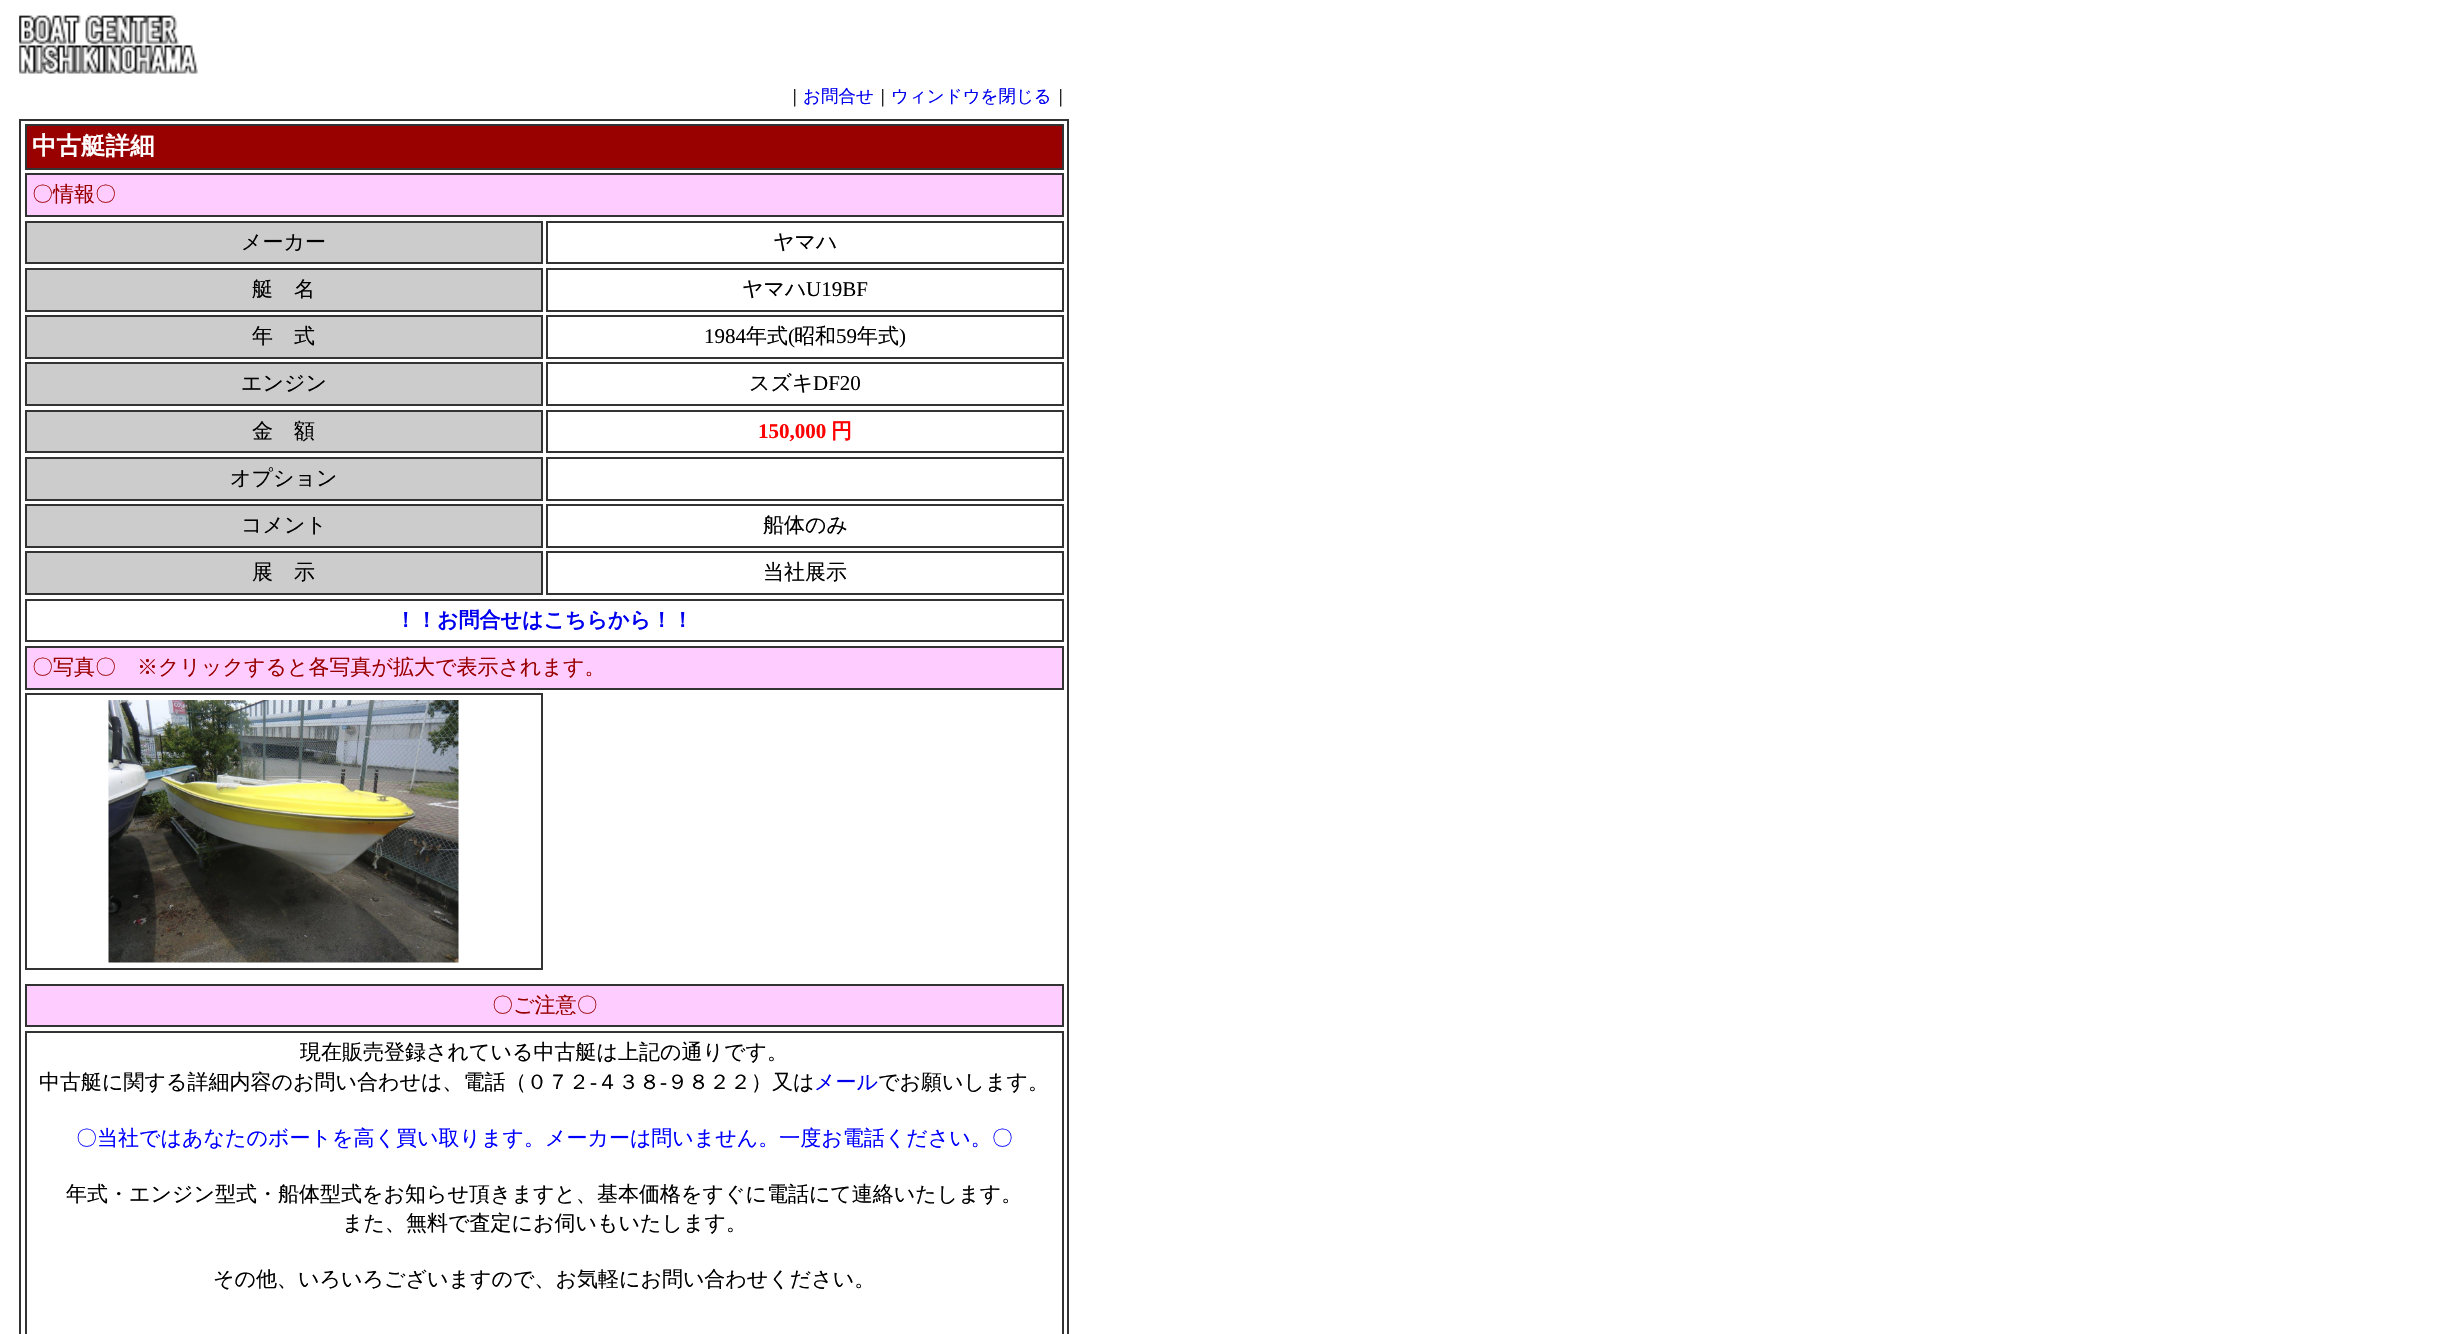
#include "include/core/SkBlurTypes.h"
#include "include/core/SkCanvas.h"
#include "include/core/SkData.h"
#include "include/core/SkFont.h"
#include "include/core/SkFontMgr.h"
#include "include/core/SkImage.h"
#include "include/core/SkMaskFilter.h"
#include "include/core/SkPaint.h"
#include "include/core/SkPathBuilder.h"
#include "include/core/SkTextBlob.h"
#include "include/effects/SkDashPathEffect.h"
#include "include/effects/SkGradientShader.h"
#include "include/utils/SkParsePath.h"

extern sk_sp<SkFontMgr> fontMgr;

static SkFont font(const char* family, int weight, float size, bool italic = false) {
    SkFontStyle style(weight, SkFontStyle::kNormal_Width,
        italic ? SkFontStyle::kItalic_Slant : SkFontStyle::kUpright_Slant);
    SkFont result(fontMgr->matchFamilyStyle(family, style), size);
    result.setSubpixel(true);
    return result;
}

static void drawLabel(SkCanvas* canvas, const char* s, float x, float y, const SkFont& font, SkColor color) {
    SkPaint ink(SkColor4f::FromColor(color));
    ink.setAntiAlias(true);
    canvas->drawString(s, x, y, font, ink);
}

static void drawPhoto(SkCanvas* canvas, const char* path, float x, float y, float w, float h) {
    auto image = SkImages::DeferredFromEncodedData(SkData::MakeFromFileName(path));
    canvas->drawImageRect(image, SkRect::MakeXYWH(x, y, w, h), SkSamplingOptions());
}

void draw(SkCanvas* canvas) {
    SkPaint paint;
    paint.setAntiAlias(true);
    canvas->clear(0xFFFFFFFF);
    drawPhoto(canvas, "assets/img1.png", 19, 15, 179, 59);
    SkFont font1 = font("WenQuanYi Zen Hei", 500, 17.5f);
    drawLabel(canvas, "｜", 786, 102, font1, 0xFF000000);
    drawLabel(canvas, "お問合せ", 803, 102, font1, 0xFF0000EE);
    drawLabel(canvas, "｜", 874, 102, font1, 0xFF000000);
    drawLabel(canvas, "ウィンドウを閉じる", 891, 102, font1, 0xFF0000EE);
    drawLabel(canvas, "｜", 1052, 102, font1, 0xFF000000);
    paint.setStroke(true);
    paint.setStrokeWidth(2);
    paint.setColor(0xFF333333);
    canvas->drawRect(SkRect::MakeXYWH(20, 120, 1048, 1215), paint);
    paint.setStroke(false);
    paint.setColor(0xFF990000);
    canvas->drawRect(SkRect::MakeXYWH(26, 125, 1037, 44), paint);
    paint.setStroke(true);
    paint.setColor(0xFF333333);
    canvas->drawRect(SkRect::MakeXYWH(26, 125, 1037, 44), paint);
    SkFont font2 = font("WenQuanYi Zen Hei", 700, 24.5f);
    drawLabel(canvas, "中古艇詳細", 32, 154, font2, 0xFFFFFFFF);
    paint.setStroke(false);
    paint.setColor(0xFFFFCCFF);
    canvas->drawRect(SkRect::MakeXYWH(26, 174, 1037, 42), paint);
    paint.setStroke(true);
    paint.setColor(0xFF333333);
    canvas->drawRect(SkRect::MakeXYWH(26, 174, 1037, 42), paint);
    SkFont font3 = font("WenQuanYi Zen Hei", 500, 21);
    drawLabel(canvas, "〇情報〇", 32, 201, font3, 0xFF990000);
    paint.setStroke(false);
    paint.setColor(0xFFCCCCCC);
    canvas->drawRect(SkRect::MakeXYWH(26, 222, 516, 41), paint);
    paint.setStroke(true);
    paint.setColor(0xFF333333);
    canvas->drawRect(SkRect::MakeXYWH(26, 222, 516, 41), paint);
    drawLabel(canvas, "メーカー", 241, 249, font3, 0xFF000000);
    canvas->drawRect(SkRect::MakeXYWH(547, 222, 516, 41), paint);
    drawLabel(canvas, "ヤマハ", 773, 249, font3, 0xFF000000);
    paint.setStroke(false);
    paint.setColor(0xFFCCCCCC);
    canvas->drawRect(SkRect::MakeXYWH(26, 269, 516, 42), paint);
    paint.setStroke(true);
    paint.setColor(0xFF333333);
    canvas->drawRect(SkRect::MakeXYWH(26, 269, 516, 42), paint);
    drawLabel(canvas, "艇　名", 252, 296, font3, 0xFF000000);
    canvas->drawRect(SkRect::MakeXYWH(547, 269, 516, 42), paint);
    drawLabel(canvas, "ヤマハ", 742, 296, font3, 0xFF000000);
    SkFont font4 = font("Liberation Serif", 400, 21);
    drawLabel(canvas, "U19BF", 806, 296, font4, 0xFF000000);
    paint.setStroke(false);
    paint.setColor(0xFFCCCCCC);
    canvas->drawRect(SkRect::MakeXYWH(26, 316, 516, 42), paint);
    paint.setStroke(true);
    paint.setColor(0xFF333333);
    canvas->drawRect(SkRect::MakeXYWH(26, 316, 516, 42), paint);
    drawLabel(canvas, "年　式", 252, 343, font3, 0xFF000000);
    canvas->drawRect(SkRect::MakeXYWH(547, 316, 516, 42), paint);
    drawLabel(canvas, "1984", 704, 343, font4, 0xFF000000);
    drawLabel(canvas, "年式", 746, 343, font3, 0xFF000000);
    drawLabel(canvas, "(", 788, 343, font4, 0xFF000000);
    drawLabel(canvas, "昭和", 794, 343, font3, 0xFF000000);
    drawLabel(canvas, "59", 836, 343, font4, 0xFF000000);
    drawLabel(canvas, "年式", 857, 343, font3, 0xFF000000);
    drawLabel(canvas, ")", 899, 343, font4, 0xFF000000);
    paint.setStroke(false);
    paint.setColor(0xFFCCCCCC);
    canvas->drawRect(SkRect::MakeXYWH(26, 363, 516, 42), paint);
    paint.setStroke(true);
    paint.setColor(0xFF333333);
    canvas->drawRect(SkRect::MakeXYWH(26, 363, 516, 42), paint);
    drawLabel(canvas, "エンジン", 241, 390, font3, 0xFF000000);
    canvas->drawRect(SkRect::MakeXYWH(547, 363, 516, 42), paint);
    drawLabel(canvas, "スズキ", 749, 390, font3, 0xFF000000);
    drawLabel(canvas, "DF20", 813, 390, font4, 0xFF000000);
    paint.setStroke(false);
    paint.setColor(0xFFCCCCCC);
    canvas->drawRect(SkRect::MakeXYWH(26, 411, 516, 41), paint);
    paint.setStroke(true);
    paint.setColor(0xFF333333);
    canvas->drawRect(SkRect::MakeXYWH(26, 411, 516, 41), paint);
    drawLabel(canvas, "金　額", 252, 438, font3, 0xFF000000);
    canvas->drawRect(SkRect::MakeXYWH(547, 411, 516, 41), paint);
    SkFont font5 = font("Liberation Serif", 700, 21);
    drawLabel(canvas, "150,000", 758, 438, font5, 0xFFFF0000);
    SkFont font6 = font("WenQuanYi Zen Hei", 700, 21);
    drawLabel(canvas, "円", 831, 438, font6, 0xFFFF0000);
    paint.setStroke(false);
    paint.setColor(0xFFCCCCCC);
    canvas->drawRect(SkRect::MakeXYWH(26, 458, 516, 42), paint);
    paint.setStroke(true);
    paint.setColor(0xFF333333);
    canvas->drawRect(SkRect::MakeXYWH(26, 458, 516, 42), paint);
    drawLabel(canvas, "オプション", 230, 485, font3, 0xFF000000);
    canvas->drawRect(SkRect::MakeXYWH(547, 458, 516, 42), paint);
    paint.setStroke(false);
    paint.setColor(0xFFCCCCCC);
    canvas->drawRect(SkRect::MakeXYWH(26, 505, 516, 42), paint);
    paint.setStroke(true);
    paint.setColor(0xFF333333);
    canvas->drawRect(SkRect::MakeXYWH(26, 505, 516, 42), paint);
    drawLabel(canvas, "コメント", 241, 532, font3, 0xFF000000);
    canvas->drawRect(SkRect::MakeXYWH(547, 505, 516, 42), paint);
    drawLabel(canvas, "船体のみ", 763, 532, font3, 0xFF000000);
    paint.setStroke(false);
    paint.setColor(0xFFCCCCCC);
    canvas->drawRect(SkRect::MakeXYWH(26, 552, 516, 42), paint);
    paint.setStroke(true);
    paint.setColor(0xFF333333);
    canvas->drawRect(SkRect::MakeXYWH(26, 552, 516, 42), paint);
    drawLabel(canvas, "展　示", 252, 579, font3, 0xFF000000);
    canvas->drawRect(SkRect::MakeXYWH(547, 552, 516, 42), paint);
    drawLabel(canvas, "当社展示", 763, 579, font3, 0xFF000000);
    canvas->drawRect(SkRect::MakeXYWH(26, 600, 1037, 41), paint);
    drawLabel(canvas, "！！お問合せはこちらから！！", 395, 627, font6, 0xFF0000EE);
    paint.setStroke(false);
    paint.setColor(0xFFFFCCFF);
    canvas->drawRect(SkRect::MakeXYWH(26, 647, 1037, 42), paint);
    paint.setStroke(true);
    paint.setColor(0xFF333333);
    canvas->drawRect(SkRect::MakeXYWH(26, 647, 1037, 42), paint);
    drawLabel(canvas, "〇写真〇　※クリックすると各写真が拡大で表示されます。", 32, 674, font3, 0xFF990000);
    canvas->drawRect(SkRect::MakeXYWH(26, 694, 516, 275), paint);
    drawPhoto(canvas, "assets/img2.png", 108, 700, 351, 263);
    paint.setStroke(false);
    paint.setColor(0xFFFFCCFF);
    canvas->drawRect(SkRect::MakeXYWH(26, 985, 1037, 41), paint);
    paint.setStroke(true);
    paint.setColor(0xFF333333);
    canvas->drawRect(SkRect::MakeXYWH(26, 985, 1037, 41), paint);
    drawLabel(canvas, "〇ご注意〇", 492, 1012, font3, 0xFF990000);
    canvas->drawRect(SkRect::MakeXYWH(26, 1032, 1037, 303), paint);
    drawLabel(canvas, "現在販売登録されている中古艇は上記の通りです。", 300, 1059, font3, 0xFF000000);
    drawLabel(canvas, "中古艇に関する詳細内容のお問い合わせは、電話（０７２", 39, 1089, font3, 0xFF000000);
    drawLabel(canvas, "-", 590, 1089, font4, 0xFF000000);
    drawLabel(canvas, "４３８", 597, 1089, font3, 0xFF000000);
    drawLabel(canvas, "-", 660, 1089, font4, 0xFF000000);
    drawLabel(canvas, "９８２２）又は", 667, 1089, font3, 0xFF000000);
    drawLabel(canvas, "メール", 814, 1089, font3, 0xFF0000EE);
    drawLabel(canvas, "でお願いします。", 878, 1089, font3, 0xFF000000);
    drawLabel(canvas, "〇当社ではあなたのボートを高く買い取ります。メーカーは問いません。一度お電話ください。〇", 76, 1145, font3, 0xFF0000FF);
    drawLabel(canvas, "年式・エンジン型式・船体型式をお知らせ頂きますと、基本価格をすぐに電話にて連絡いたします。", 66, 1201, font3, 0xFF000000);
    drawLabel(canvas, "また、無料で査定にお伺いもいたします。", 342, 1230, font3, 0xFF000000);
    drawLabel(canvas, "その他、いろいろございますので、お気軽にお問い合わせください。", 213, 1286, font3, 0xFF000000);
}
